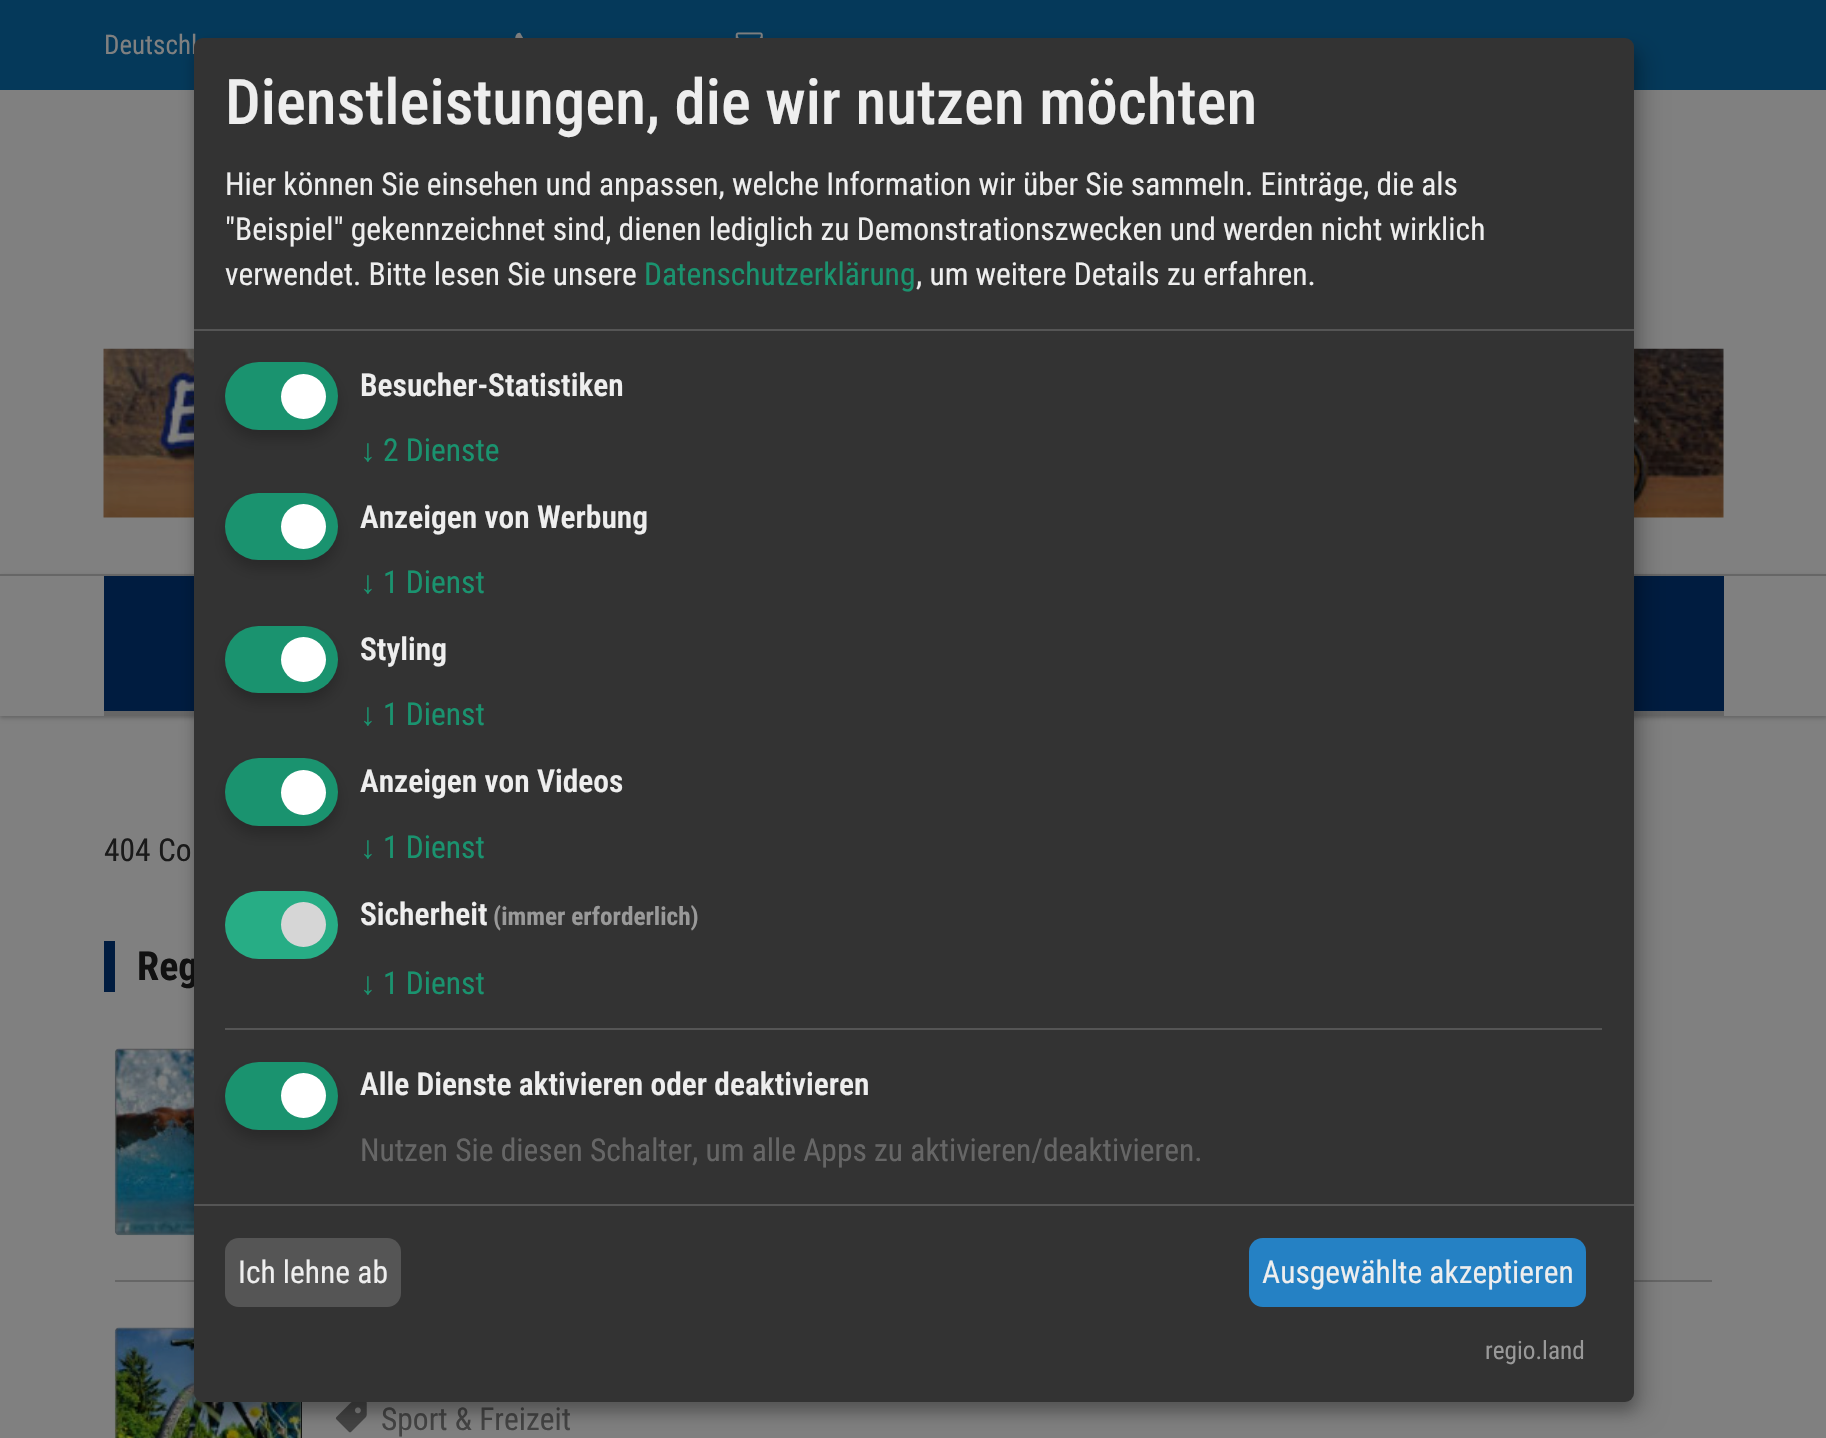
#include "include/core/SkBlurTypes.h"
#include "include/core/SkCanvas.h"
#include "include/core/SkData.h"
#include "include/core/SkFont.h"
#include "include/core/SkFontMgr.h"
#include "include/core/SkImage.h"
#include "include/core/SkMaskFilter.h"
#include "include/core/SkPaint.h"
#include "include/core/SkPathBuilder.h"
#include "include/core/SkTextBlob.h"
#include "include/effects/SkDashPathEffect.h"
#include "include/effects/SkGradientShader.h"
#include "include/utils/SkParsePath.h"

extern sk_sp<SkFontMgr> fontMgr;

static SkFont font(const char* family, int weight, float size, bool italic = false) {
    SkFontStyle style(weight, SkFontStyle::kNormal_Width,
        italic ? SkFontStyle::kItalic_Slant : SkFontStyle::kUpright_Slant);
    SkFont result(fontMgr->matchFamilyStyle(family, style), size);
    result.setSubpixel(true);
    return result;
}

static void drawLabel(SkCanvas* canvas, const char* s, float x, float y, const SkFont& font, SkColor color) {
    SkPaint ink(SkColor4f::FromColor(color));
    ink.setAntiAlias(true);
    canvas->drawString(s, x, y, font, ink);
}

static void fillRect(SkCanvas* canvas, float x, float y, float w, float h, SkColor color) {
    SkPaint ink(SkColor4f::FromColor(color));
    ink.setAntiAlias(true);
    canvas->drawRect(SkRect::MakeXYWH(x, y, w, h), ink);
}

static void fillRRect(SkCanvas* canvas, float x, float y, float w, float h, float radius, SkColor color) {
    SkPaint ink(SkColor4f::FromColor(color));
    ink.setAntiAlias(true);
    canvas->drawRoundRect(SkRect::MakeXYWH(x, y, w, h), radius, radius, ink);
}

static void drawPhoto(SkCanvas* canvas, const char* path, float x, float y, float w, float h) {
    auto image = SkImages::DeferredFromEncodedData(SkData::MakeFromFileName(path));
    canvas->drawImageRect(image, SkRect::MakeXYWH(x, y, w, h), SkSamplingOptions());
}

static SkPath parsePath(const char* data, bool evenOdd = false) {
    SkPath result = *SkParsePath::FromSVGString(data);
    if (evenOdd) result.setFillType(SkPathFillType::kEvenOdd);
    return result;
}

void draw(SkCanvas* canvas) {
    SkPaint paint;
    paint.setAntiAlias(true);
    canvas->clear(0xFF808080);
    fillRect(canvas, 0, 0, 1826, 90, 0xFF05395A);
    SkFont font1 = font("Roboto Condensed", 400, 27);
    drawLabel(canvas, "Deutschl", 104, 54, font1, 0xFF808080);
    drawPhoto(canvas, "assets/img1.png", 515, 32, 8, 6);
    drawPhoto(canvas, "assets/img2.png", 735, 32, 28, 6);
    drawPhoto(canvas, "assets/img3.png", 103, 348, 1621, 170);
    canvas->save();
    canvas->clipPath(parsePath("M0 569H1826V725H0ZM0 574H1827V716H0Z", true), true);
    paint.setColor(0x36000000);
    paint.setMaskFilter(SkMaskFilter::MakeBlur(kNormal_SkBlurStyle, 2));
    canvas->drawRect(SkRect::MakeXYWH(0, 576, 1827, 142), paint);
    paint.setMaskFilter(nullptr);
    canvas->restore();
    fillRect(canvas, 0, 574, 1826, 2, 0xFF666666);
    fillRect(canvas, 104, 576, 1620, 135, 0xFF001C40);
    fillRect(canvas, 104, 711, 1620, 5, 0xFF666666);
    SkFont font2 = font("Roboto Condensed", 400, 31.5f);
    drawLabel(canvas, "404 Co", 104, 861, font2, 0xFF1A1A1A);
    fillRect(canvas, 104, 941, 11, 51, 0xFF001C40);
    SkFont font3 = font("Roboto Condensed", 700, 40);
    drawLabel(canvas, "Reg", 137, 980, font3, 0xFF111111);
    fillRect(canvas, 115, 1280, 1597, 2, 0xFF666666);
    drawPhoto(canvas, "assets/img4.png", 114, 1048, 80, 188);
    fillRRect(canvas, 115, 1328, 187, 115, 5, 0xFF000000);
    drawPhoto(canvas, "assets/img5.png", 114, 1327, 188, 111);
    drawPhoto(canvas, "assets/img6.png", 335, 1402, 32, 31);
    drawLabel(canvas, "Sport & Freizeit", 381, 1430, font2, 0xFF444444);
    paint.setColor(0x30000000);
    paint.setMaskFilter(SkMaskFilter::MakeBlur(kNormal_SkBlurStyle, 11));
    canvas->drawRoundRect(SkRect::MakeXYWH(205, 50, 1440, 1363), 9, 9, paint);
    paint.setMaskFilter(nullptr);
    paint.setColor(0x33000000);
    paint.setMaskFilter(SkMaskFilter::MakeBlur(kNormal_SkBlurStyle, 7));
    canvas->drawRoundRect(SkRect::MakeXYWH(194, 47, 1440, 1364), 9, 9, paint);
    paint.setMaskFilter(nullptr);
    fillRRect(canvas, 194, 38, 1440, 1364, 9, 0xFF333333);
    fillRect(canvas, 194, 329, 1440, 2, 0xFF555555);
    SkFont font4 = font("Roboto Condensed", 500, 63);
    drawLabel(canvas, "Dienstleistungen, die wir nutzen möchten", 225, 124, font4, 0xFFEEEEEE);
    drawLabel(canvas, "Hier können Sie einsehen und anpassen, welche Information wir über Sie sammeln. Einträge, die als", 225, 195, font2, 0xFFEEEEEE);
    drawLabel(canvas, "\"Beispiel\" gekennzeichnet sind, dienen lediglich zu Demonstrationszwecken und werden nicht wirklich", 225, 240, font2, 0xFFEEEEEE);
    drawLabel(canvas, "verwendet. Bitte lesen Sie unsere", 225, 285, font2, 0xFFEEEEEE);
    drawLabel(canvas, "Datenschutzerklärung", 644, 285, font2, 0xFF1A936F);
    drawLabel(canvas, ", um weitere Details zu erfahren.", 916, 285, font2, 0xFFEEEEEE);
    paint.setMaskFilter(SkMaskFilter::MakeBlur(kNormal_SkBlurStyle, 7));
    canvas->drawRoundRect(SkRect::MakeXYWH(225, 371, 113, 68), 34, 34, paint);
    paint.setMaskFilter(nullptr);
    fillRRect(canvas, 225, 362, 113, 68, 34, 0xFF1A936F);
    paint.setColor(0xFFFFFFFF);
    canvas->drawCircle(303.5f, 396.5f, 22.5f, paint);
    SkFont font5 = font("Roboto Condensed", 600, 31.5f);
    drawLabel(canvas, "Besucher-Statistiken", 360, 396, font5, 0xFFEEEEEE);
    SkFont font6 = font("Liberation Sans", 400, 31.5f);
    drawLabel(canvas, "↓", 360, 461, font6, 0xFF1A936F);
    drawLabel(canvas, "2 Dienste", 383, 461, font2, 0xFF1A936F);
    paint.setColor(0x33000000);
    paint.setMaskFilter(SkMaskFilter::MakeBlur(kNormal_SkBlurStyle, 7));
    canvas->drawRoundRect(SkRect::MakeXYWH(225, 502, 113, 67), 33.5f, 33.5f, paint);
    paint.setMaskFilter(nullptr);
    fillRRect(canvas, 225, 493, 113, 67, 33.5f, 0xFF1A936F);
    paint.setColor(0xFFFFFFFF);
    canvas->drawCircle(303.5f, 526.5f, 22.5f, paint);
    drawLabel(canvas, "Anzeigen von Werbung", 360, 528, font5, 0xFFEEEEEE);
    drawLabel(canvas, "↓", 360, 593, font6, 0xFF1A936F);
    drawLabel(canvas, "1 Dienst", 383, 593, font2, 0xFF1A936F);
    paint.setColor(0x33000000);
    paint.setMaskFilter(SkMaskFilter::MakeBlur(kNormal_SkBlurStyle, 7));
    canvas->drawRoundRect(SkRect::MakeXYWH(225, 635, 113, 67), 33.5f, 33.5f, paint);
    paint.setMaskFilter(nullptr);
    fillRRect(canvas, 225, 626, 113, 67, 33.5f, 0xFF1A936F);
    paint.setColor(0xFFFFFFFF);
    canvas->drawCircle(303.5f, 659.5f, 22.5f, paint);
    drawLabel(canvas, "Styling", 360, 660, font5, 0xFFEEEEEE);
    drawLabel(canvas, "↓", 360, 725, font6, 0xFF1A936F);
    drawLabel(canvas, "1 Dienst", 383, 725, font2, 0xFF1A936F);
    paint.setColor(0x33000000);
    paint.setMaskFilter(SkMaskFilter::MakeBlur(kNormal_SkBlurStyle, 7));
    canvas->drawRoundRect(SkRect::MakeXYWH(225, 767, 113, 68), 34, 34, paint);
    paint.setMaskFilter(nullptr);
    fillRRect(canvas, 225, 758, 113, 68, 34, 0xFF1A936F);
    paint.setColor(0xFFFFFFFF);
    canvas->drawCircle(303.5f, 792.5f, 22.5f, paint);
    drawLabel(canvas, "Anzeigen von Videos", 360, 792, font5, 0xFFEEEEEE);
    drawLabel(canvas, "↓", 360, 858, font6, 0xFF1A936F);
    drawLabel(canvas, "1 Dienst", 383, 858, font2, 0xFF1A936F);
    fillRRect(canvas, 225, 891, 113, 68, 34, 0xFF27AD85);
    paint.setColor(0xFFD6D6D6);
    canvas->drawCircle(303.5f, 924.5f, 22.5f, paint);
    drawLabel(canvas, "Sicherheit", 360, 925, font5, 0xFFEEEEEE);
    SkFont font7 = font("Roboto Condensed", 700, 25.25f);
    drawLabel(canvas, "(immer erforderlich)", 493, 925, font7, 0xFF999999);
    drawLabel(canvas, "↓", 360, 994, font6, 0xFF1A936F);
    drawLabel(canvas, "1 Dienst", 383, 994, font2, 0xFF1A936F);
    fillRect(canvas, 225, 1028, 1377, 2, 0xFF555555);
    paint.setColor(0x33000000);
    paint.setMaskFilter(SkMaskFilter::MakeBlur(kNormal_SkBlurStyle, 7));
    canvas->drawRoundRect(SkRect::MakeXYWH(225, 1071, 113, 68), 34, 34, paint);
    paint.setMaskFilter(nullptr);
    fillRRect(canvas, 225, 1062, 113, 68, 34, 0xFF1A936F);
    paint.setColor(0xFFFFFFFF);
    canvas->drawCircle(303.5f, 1095.5f, 22.5f, paint);
    drawLabel(canvas, "Alle Dienste aktivieren oder deaktivieren", 360, 1095, font5, 0xFFEEEEEE);
    drawLabel(canvas, "Nutzen Sie diesen Schalter, um alle Apps zu aktivieren/deaktivieren.", 360, 1161, font2, 0xFF666666);
    fillRect(canvas, 194, 1204, 1440, 2, 0xFF555555);
    fillRRect(canvas, 225, 1238, 176, 69, 14, 0xFF555555);
    drawLabel(canvas, "Ich lehne ab", 238, 1283, font2, 0xFFEEEEEE);
    fillRRect(canvas, 1249, 1238, 337, 69, 14, 0xFF2581C4);
    drawLabel(canvas, "Ausgewählte akzeptieren", 1262, 1283, font2, 0xFFEEEEEE);
    SkFont font8 = font("Roboto Condensed", 400, 25.25f);
    drawLabel(canvas, "regio.land", 1485, 1359, font8, 0xFF999999);
}
